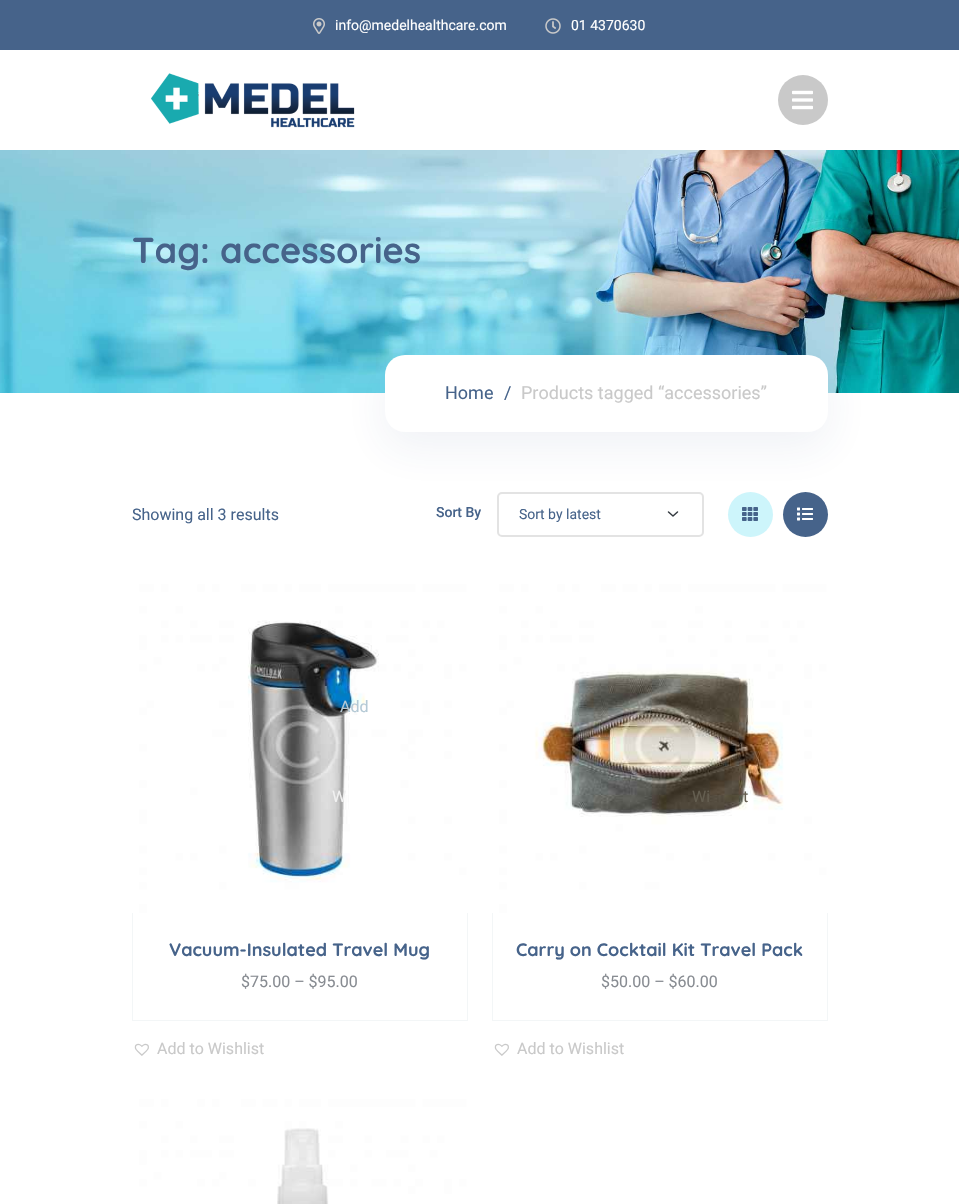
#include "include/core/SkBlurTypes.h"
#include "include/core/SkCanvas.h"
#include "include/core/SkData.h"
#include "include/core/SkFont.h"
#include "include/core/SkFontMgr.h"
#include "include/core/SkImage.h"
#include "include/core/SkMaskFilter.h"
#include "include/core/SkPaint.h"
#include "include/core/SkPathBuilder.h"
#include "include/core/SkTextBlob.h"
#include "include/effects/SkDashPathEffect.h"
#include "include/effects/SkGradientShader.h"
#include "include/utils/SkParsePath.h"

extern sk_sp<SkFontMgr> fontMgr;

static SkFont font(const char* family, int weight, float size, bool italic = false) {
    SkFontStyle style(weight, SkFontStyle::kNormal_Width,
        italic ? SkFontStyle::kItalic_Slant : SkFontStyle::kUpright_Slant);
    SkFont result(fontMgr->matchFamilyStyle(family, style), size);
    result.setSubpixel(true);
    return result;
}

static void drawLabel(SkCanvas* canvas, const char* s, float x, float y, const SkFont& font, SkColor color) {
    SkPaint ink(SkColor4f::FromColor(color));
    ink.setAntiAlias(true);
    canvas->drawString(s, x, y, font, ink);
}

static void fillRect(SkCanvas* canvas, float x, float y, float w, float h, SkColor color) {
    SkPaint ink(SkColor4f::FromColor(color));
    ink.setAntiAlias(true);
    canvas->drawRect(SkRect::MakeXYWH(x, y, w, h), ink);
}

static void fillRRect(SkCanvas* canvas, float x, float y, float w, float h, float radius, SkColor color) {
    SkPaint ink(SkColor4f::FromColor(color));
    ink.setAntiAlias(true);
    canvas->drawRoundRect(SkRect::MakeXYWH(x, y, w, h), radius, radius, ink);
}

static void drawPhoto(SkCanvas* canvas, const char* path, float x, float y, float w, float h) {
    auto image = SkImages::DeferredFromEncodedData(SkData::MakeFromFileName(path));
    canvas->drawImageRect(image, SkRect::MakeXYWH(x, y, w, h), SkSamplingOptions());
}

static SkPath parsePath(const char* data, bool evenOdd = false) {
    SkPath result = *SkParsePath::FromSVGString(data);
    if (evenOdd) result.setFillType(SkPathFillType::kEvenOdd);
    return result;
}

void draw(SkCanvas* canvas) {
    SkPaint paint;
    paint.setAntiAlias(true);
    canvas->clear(0xFFFFFFFF);
    fillRect(canvas, 0, 0, 959, 50, 0xFF46638A);
    drawPhoto(canvas, "assets/img1.png", 313, 18, 12, 16);
    SkFont font1 = font("Roboto", 400, 14);
    drawLabel(canvas, "info@medelhealthcare.com", 335, 30, font1, 0xFFFFFFFF);
    drawPhoto(canvas, "assets/img2.png", 545, 18, 16, 16);
    drawLabel(canvas, "01 4370630", 571, 30, font1, 0xFFFFFFFF);
    drawPhoto(canvas, "assets/img3.png", 151, 73, 204, 55);
    paint.setColor(0xFFC9C9C9);
    canvas->drawCircle(803, 100, 25, paint);
    drawPhoto(canvas, "assets/img4.png", 792, 90, 21, 20);
    drawPhoto(canvas, "assets/img5.png", 0, 150, 959, 243);
    SkFont font2 = font("Quicksand", 700, 36);
    drawLabel(canvas, "Tag: accessories", 132, 263, font2, 0xFF46638A);
    paint.setStroke(true);
    paint.setStrokeWidth(1.5f);
    paint.setStrokeCap(SkPaint::kRound_Cap);
    paint.setStrokeJoin(SkPaint::kRound_Join);
    paint.setColor(0xFF343A40);
    canvas->drawPath(parsePath("M668.5 512L673 516L677.5 512"), paint);
    paint.setStrokeWidth(2);
    paint.setStrokeCap(SkPaint::kButt_Cap);
    paint.setStrokeJoin(SkPaint::kMiter_Join);
    paint.setColor(0xFFE3E3E3);
    canvas->drawRoundRect(SkRect::MakeXYWH(498, 493, 205, 43), 4, 4, paint);
    paint.setStroke(false);
    paint.setColor(0xFFCDF5FB);
    canvas->drawCircle(750.5f, 514.5f, 22.5f, paint);
    drawPhoto(canvas, "assets/img6.png", 742, 507, 16, 14);
    paint.setColor(0xFF46638A);
    canvas->drawCircle(805.5f, 514.5f, 22.5f, paint);
    drawPhoto(canvas, "assets/img7.png", 797, 507, 16, 14);
    paint.setColor(0x1227477D);
    paint.setMaskFilter(SkMaskFilter::MakeBlur(kNormal_SkBlurStyle, 21.5f));
    canvas->drawRoundRect(SkRect::MakeXYWH(383, 368, 447, 81), 22, 22, paint);
    paint.setMaskFilter(nullptr);
    fillRRect(canvas, 385, 355, 443, 77, 20, 0xFFFFFFFF);
    SkFont font3 = font("Roboto", 400, 18);
    drawLabel(canvas, "Home", 445, 399, font3, 0xFF46638A);
    drawLabel(canvas, "/", 504, 399, font3, 0xFF46638A);
    drawLabel(canvas, "Products tagged “accessories”", 521, 399, font3, 0xFFC9C9C9);
    SkFont font4 = font("Roboto", 400, 16);
    drawLabel(canvas, "Showing all 3 results", 132, 520, font4, 0xFF46638A);
    SkFont font5 = font("Roboto", 500, 14);
    drawLabel(canvas, "Sort By", 436, 517, font5, 0xFF46638A);
    drawLabel(canvas, "Sort by latest", 519, 519, font1, 0xFF46638A);
    drawPhoto(canvas, "assets/img8.png", 132, 577, 336, 336);
    drawLabel(canvas, "Add", 340, 712, font4, 0xFFB4C9D5);
    drawLabel(canvas, "W", 332, 802, font4, 0xFFF1F1F1);
    fillRect(canvas, 467, 913, 1, 108, 0xFFF3F6F7);
    fillRect(canvas, 132, 1020, 336, 1, 0xFFF3F6F7);
    fillRect(canvas, 132, 913, 1, 108, 0xFFF3F6F7);
    SkFont font6 = font("Quicksand", 700, 18);
    drawLabel(canvas, "Vacuum-Insulated Travel Mug", 169, 956, font6, 0xFF46638A);
    drawLabel(canvas, "$75.00 – $95.00", 241, 987, font4, 0xFF888C92);
    drawPhoto(canvas, "assets/img9.png", 134, 1043, 15, 13);
    drawLabel(canvas, "Add to Wishlist", 157, 1054, font4, 0xFFC9C9C9);
    drawPhoto(canvas, "assets/img10.png", 492, 577, 336, 336);
    drawLabel(canvas, "Wi", 692, 802, font4, 0xFF645E50);
    drawLabel(canvas, "t", 743, 802, font4, 0xFF645E50);
    fillRect(canvas, 827, 913, 1, 108, 0xFFF3F6F7);
    fillRect(canvas, 492, 1020, 336, 1, 0xFFF3F6F7);
    fillRect(canvas, 492, 913, 1, 108, 0xFFF3F6F7);
    drawLabel(canvas, "Carry on Cocktail Kit Travel Pack", 516, 956, font6, 0xFF46638A);
    drawLabel(canvas, "$50.00 – $60.00", 601, 987, font4, 0xFF888C92);
    drawPhoto(canvas, "assets/img9.png", 494, 1043, 15, 13);
    drawLabel(canvas, "Add to Wishlist", 517, 1054, font4, 0xFFC9C9C9);
    drawPhoto(canvas, "assets/img11.png", 132, 1092, 336, 112);
}
